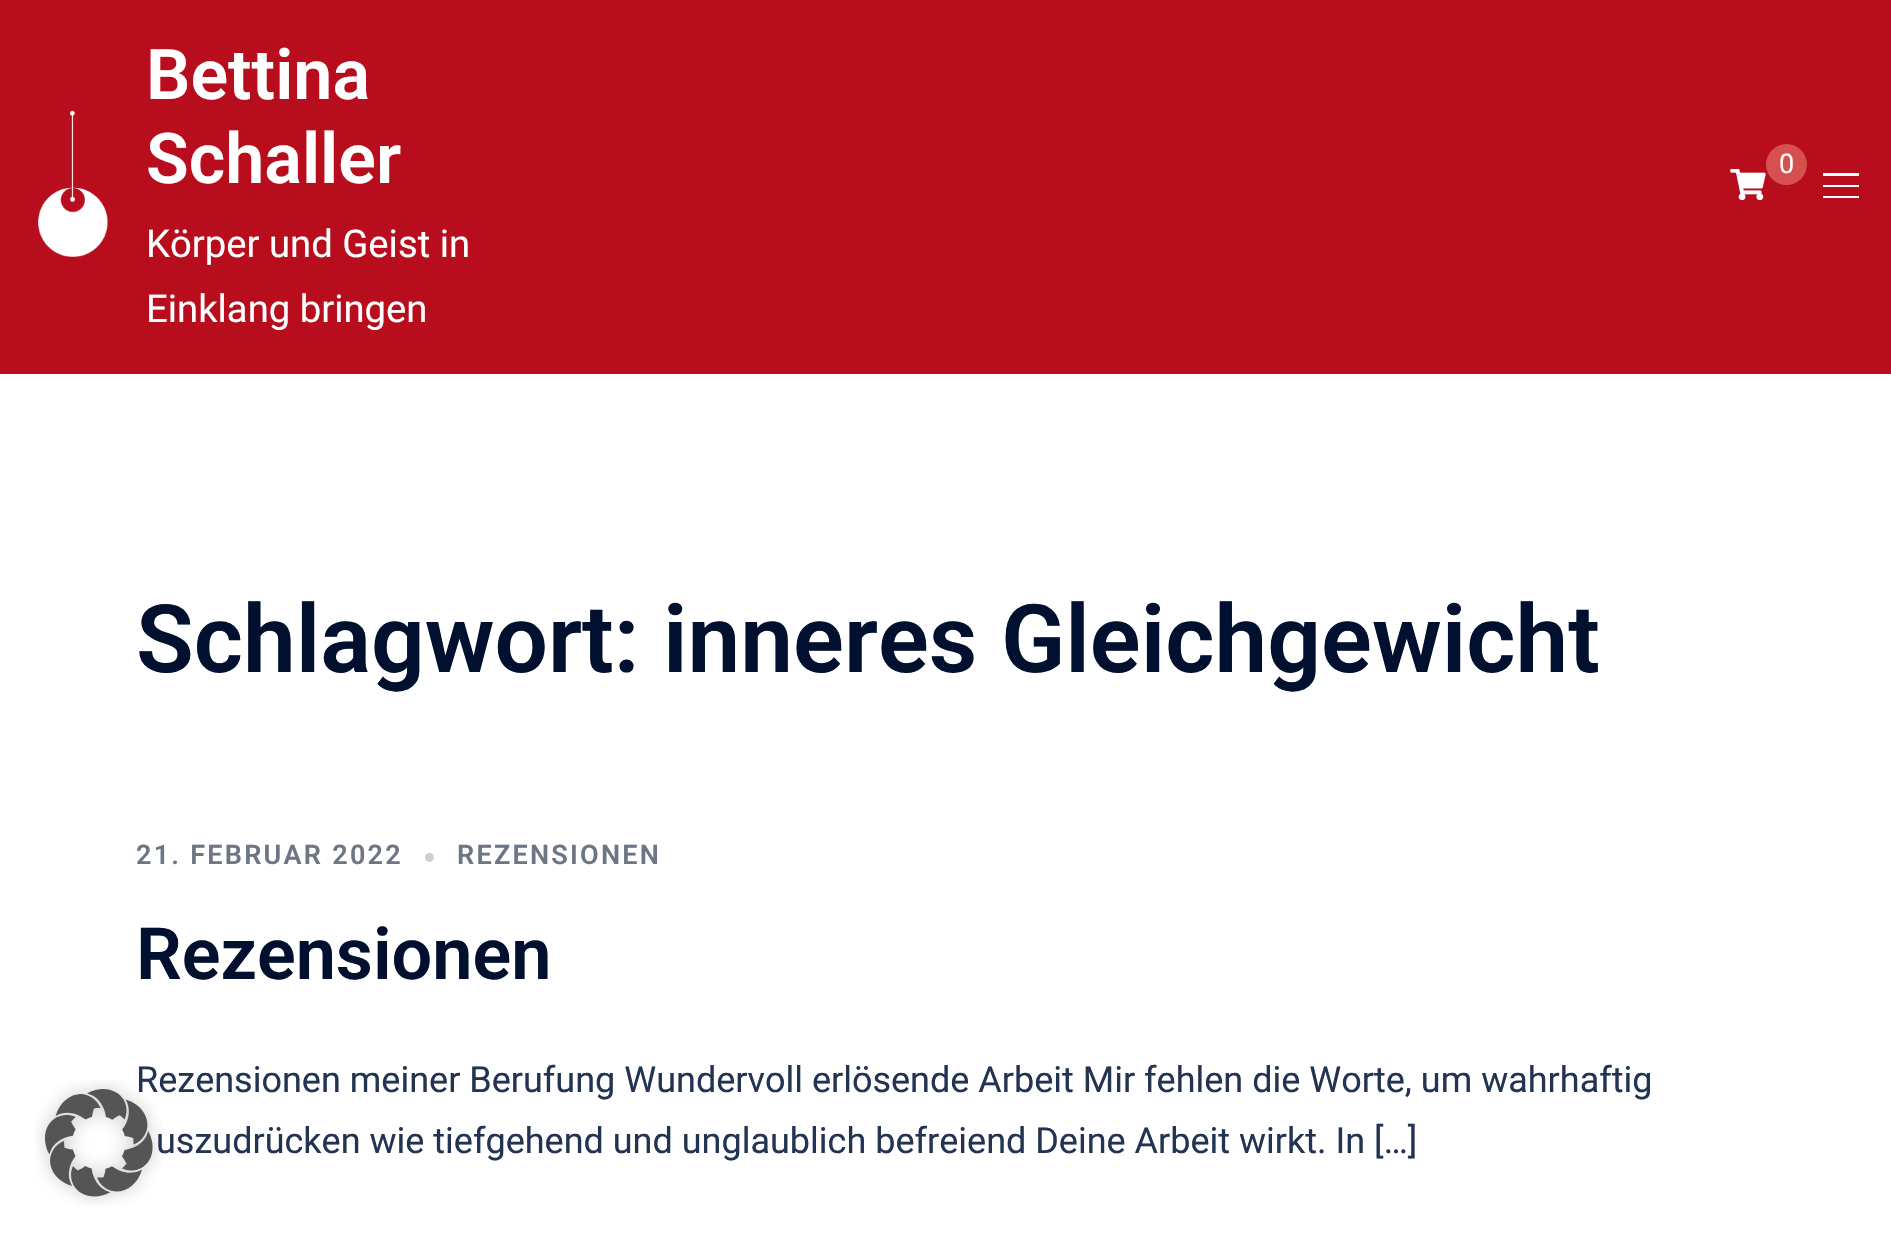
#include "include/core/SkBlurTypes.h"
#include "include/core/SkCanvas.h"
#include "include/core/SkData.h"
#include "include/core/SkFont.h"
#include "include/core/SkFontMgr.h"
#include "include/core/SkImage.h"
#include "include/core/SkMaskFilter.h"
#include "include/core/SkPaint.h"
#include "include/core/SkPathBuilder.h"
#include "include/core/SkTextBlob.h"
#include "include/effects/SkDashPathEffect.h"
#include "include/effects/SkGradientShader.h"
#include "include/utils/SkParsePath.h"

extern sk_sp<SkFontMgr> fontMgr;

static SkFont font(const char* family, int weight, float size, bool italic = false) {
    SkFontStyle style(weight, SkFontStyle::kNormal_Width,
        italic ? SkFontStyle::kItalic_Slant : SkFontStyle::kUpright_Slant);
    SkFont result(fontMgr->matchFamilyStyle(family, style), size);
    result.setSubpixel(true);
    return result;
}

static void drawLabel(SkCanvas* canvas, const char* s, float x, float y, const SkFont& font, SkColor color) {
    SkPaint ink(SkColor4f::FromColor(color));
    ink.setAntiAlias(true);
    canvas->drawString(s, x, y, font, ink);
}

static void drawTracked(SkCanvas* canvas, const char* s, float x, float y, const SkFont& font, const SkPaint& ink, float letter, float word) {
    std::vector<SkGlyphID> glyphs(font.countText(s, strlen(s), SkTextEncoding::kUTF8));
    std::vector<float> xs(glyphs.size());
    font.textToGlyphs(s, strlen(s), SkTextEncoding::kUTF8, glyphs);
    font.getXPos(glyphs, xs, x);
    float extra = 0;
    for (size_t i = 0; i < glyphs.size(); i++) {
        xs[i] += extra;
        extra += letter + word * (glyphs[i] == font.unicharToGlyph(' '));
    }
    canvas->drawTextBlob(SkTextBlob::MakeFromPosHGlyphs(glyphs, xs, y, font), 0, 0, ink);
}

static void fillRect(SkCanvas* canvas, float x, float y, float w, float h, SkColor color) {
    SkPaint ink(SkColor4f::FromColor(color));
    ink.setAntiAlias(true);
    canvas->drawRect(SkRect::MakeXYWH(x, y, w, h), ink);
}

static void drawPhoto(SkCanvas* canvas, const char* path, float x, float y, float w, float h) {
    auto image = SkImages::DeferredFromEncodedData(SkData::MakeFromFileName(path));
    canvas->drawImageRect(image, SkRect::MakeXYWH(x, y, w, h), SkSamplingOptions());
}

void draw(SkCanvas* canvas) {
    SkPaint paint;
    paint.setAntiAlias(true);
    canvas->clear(0xFFFFFFFF);
    SkFont font1 = font("Roboto", 400, 36);
    drawLabel(canvas, "Rezensionen meiner Berufung Wundervoll erlösende Arbeit Mir fehlen die Worte, um wahrhaftig", 136, 1092, font1, 0xFF233452);
    drawLabel(canvas, "uszudrücken wie tiefgehend und unglaublich befreiend Deine Arbeit wirkt. In […]", 156, 1153, font1, 0xFF233452);
    drawPhoto(canvas, "assets/img1.png", 35, 1080, 127, 126);
    fillRect(canvas, 0, 0, 1891, 374, 0xFFB80D1D);
    drawPhoto(canvas, "assets/img2.png", 38, 110, 70, 147);
    SkFont font2 = font("Roboto", 600, 70);
    drawLabel(canvas, "Bettina", 146, 99, font2, 0xFFFFFFFF);
    drawLabel(canvas, "Schaller", 146, 183, font2, 0xFFFFFFFF);
    SkFont font3 = font("Roboto", 400, 38.25f);
    drawLabel(canvas, "Körper und Geist in", 146, 257, font3, 0xFFFFFFFF);
    drawLabel(canvas, "Einklang bringen", 146, 322, font3, 0xFFFFFFFF);
    paint.setColor(0xFFD65050);
    canvas->drawCircle(1786.5f, 164.5f, 20.5f, paint);
    SkFont font4 = font("Roboto", 400, 27);
    drawLabel(canvas, "0", 1779, 173, font4, 0xFFFFFFFF);
    drawPhoto(canvas, "assets/img3.png", 1730, 169, 36, 31);
    fillRect(canvas, 1823, 173, 36, 3, 0xFFFFFFFF);
    fillRect(canvas, 1823, 185, 36, 2, 0xFFFFFFFF);
    fillRect(canvas, 1823, 196, 36, 2, 0xFFFFFFFF);
    SkFont font5 = font("Roboto", 600, 94.5f);
    drawLabel(canvas, "Schlagwort: inneres Gleichgewicht", 136, 672, font5, 0xFF00102E);
    SkFont font6 = font("Roboto", 600, 27);
    paint.setColor(0xFF6D7685);
    drawTracked(canvas, "21. FEBRUAR 2022", 136, 864, font6, paint, 2.25f, 0);
    paint.setColor(0xFFCCCFD5);
    canvas->drawCircle(429.5f, 857.5f, 4.5f, paint);
    paint.setColor(0xFF6D7685);
    drawTracked(canvas, "REZENSIONEN", 457, 864, font6, paint, 2.25f, 0);
    SkFont font7 = font("Roboto", 600, 72);
    drawLabel(canvas, "Rezensionen", 136, 979, font7, 0xFF00102E);
}
